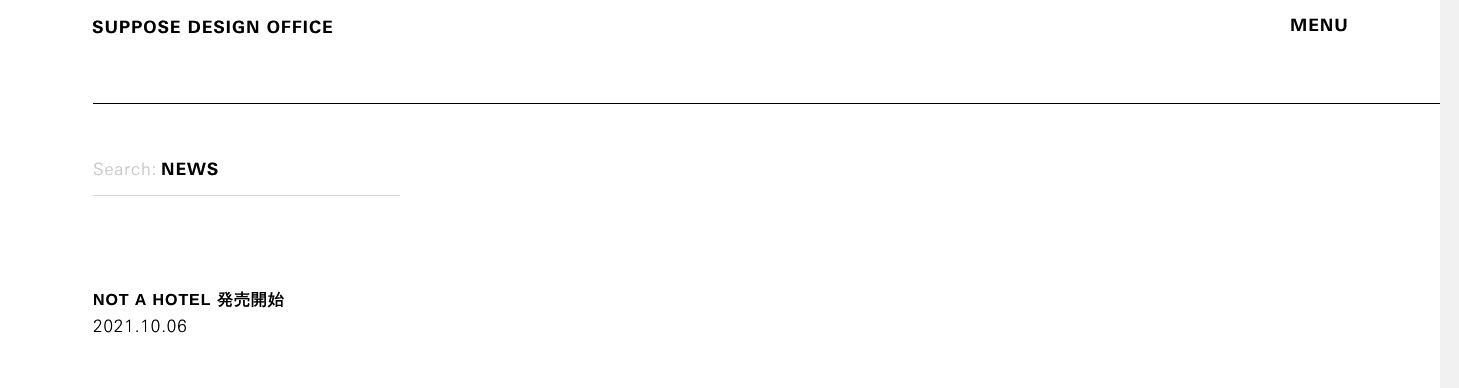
#include "include/core/SkBlurTypes.h"
#include "include/core/SkCanvas.h"
#include "include/core/SkData.h"
#include "include/core/SkFont.h"
#include "include/core/SkFontMgr.h"
#include "include/core/SkImage.h"
#include "include/core/SkMaskFilter.h"
#include "include/core/SkPaint.h"
#include "include/core/SkPathBuilder.h"
#include "include/core/SkTextBlob.h"
#include "include/effects/SkDashPathEffect.h"
#include "include/effects/SkGradientShader.h"
#include "include/utils/SkParsePath.h"

extern sk_sp<SkFontMgr> fontMgr;

static SkFont font(const char* family, int weight, float size, bool italic = false) {
    SkFontStyle style(weight, SkFontStyle::kNormal_Width,
        italic ? SkFontStyle::kItalic_Slant : SkFontStyle::kUpright_Slant);
    SkFont result(fontMgr->matchFamilyStyle(family, style), size);
    result.setSubpixel(true);
    return result;
}

static void drawTracked(SkCanvas* canvas, const char* s, float x, float y, const SkFont& font, const SkPaint& ink, float letter, float word) {
    std::vector<SkGlyphID> glyphs(font.countText(s, strlen(s), SkTextEncoding::kUTF8));
    std::vector<float> xs(glyphs.size());
    font.textToGlyphs(s, strlen(s), SkTextEncoding::kUTF8, glyphs);
    font.getXPos(glyphs, xs, x);
    float extra = 0;
    for (size_t i = 0; i < glyphs.size(); i++) {
        xs[i] += extra;
        extra += letter + word * (glyphs[i] == font.unicharToGlyph(' '));
    }
    canvas->drawTextBlob(SkTextBlob::MakeFromPosHGlyphs(glyphs, xs, y, font), 0, 0, ink);
}

static void fillRect(SkCanvas* canvas, float x, float y, float w, float h, SkColor color) {
    SkPaint ink(SkColor4f::FromColor(color));
    ink.setAntiAlias(true);
    canvas->drawRect(SkRect::MakeXYWH(x, y, w, h), ink);
}

void draw(SkCanvas* canvas) {
    SkPaint paint;
    paint.setAntiAlias(true);
    canvas->clear(0xFFF1F1F1);
    fillRect(canvas, 0, 0, 1440, 388, 0xFFFFFFFF);
    fillRect(canvas, 93, 103, 1347, 1, 0xFF000000);
    SkFont font1 = font("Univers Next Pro", 700, 17);
    paint.setColor(0xFF000000);
    drawTracked(canvas, "SUPPOSE DESIGN OFFICE", 92, 33, font1, paint, 0.9f, 0);
    drawTracked(canvas, "MENU", 1290, 31, font1, paint, 0.9f, 0);
    fillRect(canvas, 93, 195, 307, 1, 0xFFD9D9D9);
    SkFont font2 = font("Univers Next Pro", 300, 17);
    paint.setColor(0xFFC3C3C3);
    drawTracked(canvas, "Search:", 93, 175, font2, paint, 0.9f, 0);
    paint.setColor(0xFF000000);
    drawTracked(canvas, "NEWS", 161, 175, font1, paint, 0.9f, 0);
    SkFont font3 = font("Liberation Sans", 700, 16);
    drawTracked(canvas, "NOT A HOTEL", 93, 305, font3, paint, 0.9f, 0);
    SkFont font4 = font("WenQuanYi Zen Hei", 700, 16);
    drawTracked(canvas, "発売開始", 217, 305, font4, paint, 0.9f, 0);
    drawTracked(canvas, "2021.10.06", 93, 332, font2, paint, 0.9f, 0);
}
